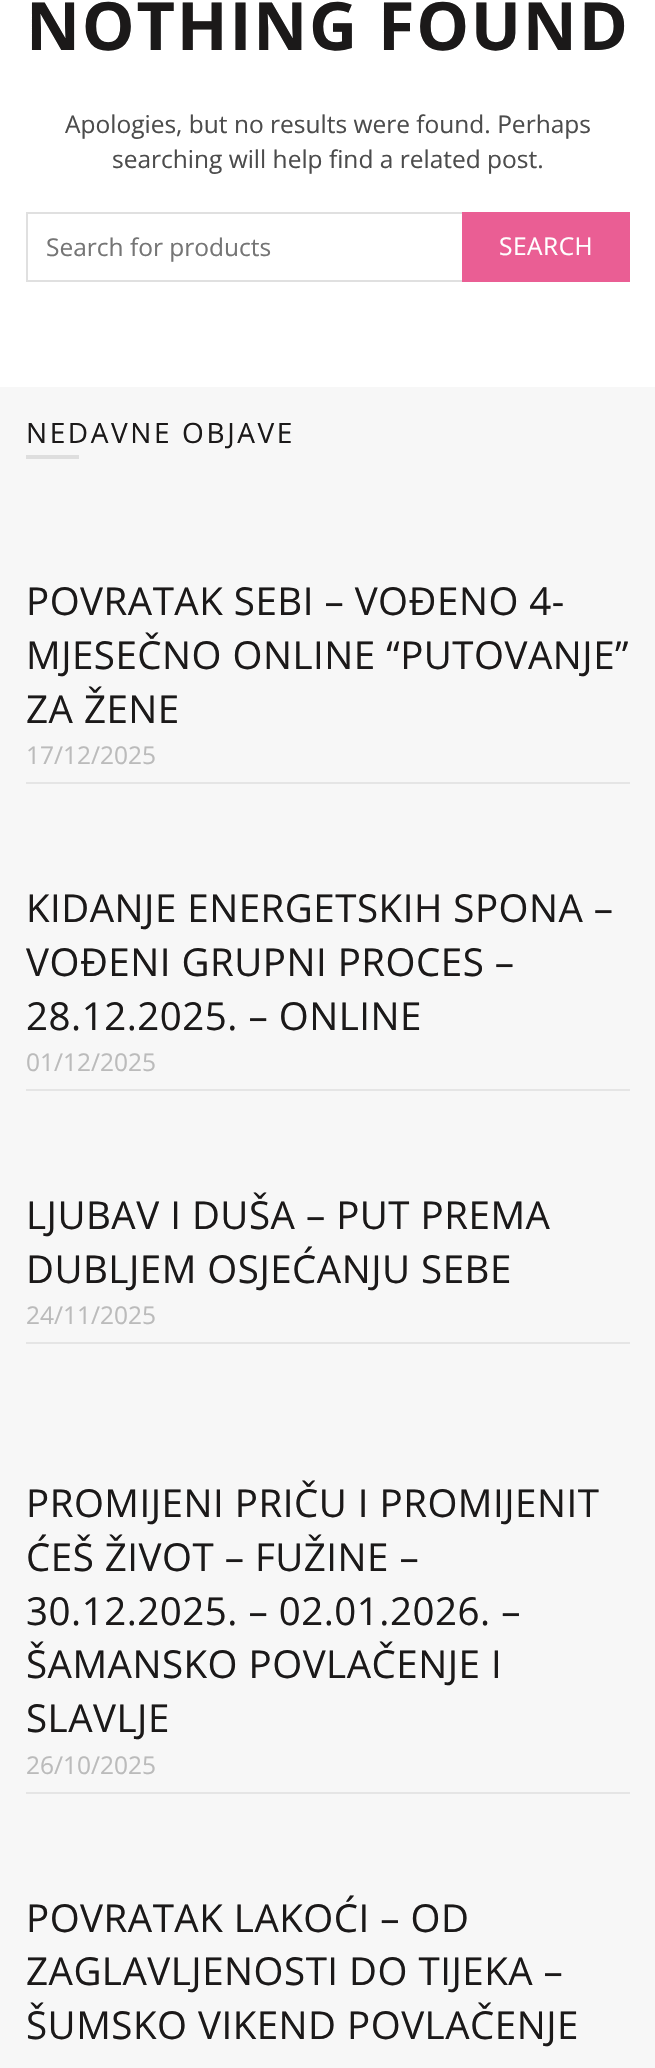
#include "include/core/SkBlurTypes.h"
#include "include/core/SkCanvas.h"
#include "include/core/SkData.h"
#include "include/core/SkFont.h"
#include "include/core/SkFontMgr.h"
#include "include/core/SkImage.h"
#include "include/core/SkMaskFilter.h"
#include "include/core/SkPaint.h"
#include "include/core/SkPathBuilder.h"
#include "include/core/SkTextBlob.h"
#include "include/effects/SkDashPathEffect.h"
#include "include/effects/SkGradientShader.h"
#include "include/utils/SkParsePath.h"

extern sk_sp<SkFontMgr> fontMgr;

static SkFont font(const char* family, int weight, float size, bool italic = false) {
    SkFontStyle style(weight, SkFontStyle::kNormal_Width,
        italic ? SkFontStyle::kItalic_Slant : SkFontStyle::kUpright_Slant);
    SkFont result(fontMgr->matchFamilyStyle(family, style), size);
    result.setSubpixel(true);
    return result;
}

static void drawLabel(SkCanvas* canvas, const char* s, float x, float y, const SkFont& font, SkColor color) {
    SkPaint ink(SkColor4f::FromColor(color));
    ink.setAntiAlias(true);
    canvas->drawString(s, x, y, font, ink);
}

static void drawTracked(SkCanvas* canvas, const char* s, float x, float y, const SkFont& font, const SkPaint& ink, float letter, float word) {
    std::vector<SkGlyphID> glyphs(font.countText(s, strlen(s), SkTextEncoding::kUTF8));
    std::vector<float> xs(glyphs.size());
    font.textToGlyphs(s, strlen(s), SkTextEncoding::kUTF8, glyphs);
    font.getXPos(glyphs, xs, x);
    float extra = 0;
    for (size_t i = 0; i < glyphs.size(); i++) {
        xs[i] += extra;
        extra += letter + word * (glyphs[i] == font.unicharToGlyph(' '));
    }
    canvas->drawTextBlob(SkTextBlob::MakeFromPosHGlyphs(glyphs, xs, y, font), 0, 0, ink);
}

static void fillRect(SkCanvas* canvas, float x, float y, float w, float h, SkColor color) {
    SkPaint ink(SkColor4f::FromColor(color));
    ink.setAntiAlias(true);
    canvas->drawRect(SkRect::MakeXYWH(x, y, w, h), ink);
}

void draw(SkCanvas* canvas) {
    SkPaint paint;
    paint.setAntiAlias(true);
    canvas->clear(0xFFFFFFFF);
    SkFont font1 = font("Open Sans", 700, 66.5f);
    paint.setColor(0xFF1B1919);
    drawTracked(canvas, "NOTHING FOUND", 26, 50, font1, paint, 1.75f, 0);
    SkFont font2 = font("Open Sans", 400, 24.5f);
    drawLabel(canvas, "Apologies, but no results were found. Perhaps", 65, 133, font2, 0xFF4C4C4C);
    drawLabel(canvas, "searching will help find a related post.", 112, 168, font2, 0xFF4C4C4C);
    paint.setStroke(true);
    paint.setStrokeWidth(2);
    paint.setColor(0xFFE0E0E0);
    canvas->drawRect(SkRect::MakeXYWH(27, 213, 602, 68), paint);
    drawLabel(canvas, "Search for products", 46, 256, font2, 0xFF757575);
    fillRect(canvas, 462, 212, 168, 70, 0xFFEA5E94);
    paint.setStroke(false);
    paint.setColor(0xFFFFFFFF);
    drawTracked(canvas, "SEARCH", 499, 255, font2, paint, 0.5f, 0);
    fillRect(canvas, 0, 387, 655, 1681, 0xFFF7F7F7);
    SkFont font3 = font("Open Sans", 400, 28);
    paint.setColor(0xFF1B1919);
    drawTracked(canvas, "NEDAVNE OBJAVE", 26, 443, font3, paint, 2.6f, 0);
    fillRect(canvas, 26, 455, 53, 4, 0xFFDEDEDE);
    fillRect(canvas, 26, 782, 604, 2, 0xFFE5E5E5);
    SkFont font4 = font("Open Sans", 400, 38.5f);
    drawTracked(canvas, "POVRATAK SEBI – VOĐENO 4-", 26, 615, font4, paint, 0.5f, 0);
    drawTracked(canvas, "MJESEČNO ONLINE “PUTOVANJE”", 26, 669, font4, paint, 0.5f, 0);
    drawTracked(canvas, "ZA ŽENE", 26, 723, font4, paint, 0.5f, 0);
    drawLabel(canvas, "17/12/2025", 26, 764, font2, 0xFFBBBBBB);
    fillRect(canvas, 26, 1089, 604, 2, 0xFFE5E5E5);
    drawTracked(canvas, "KIDANJE ENERGETSKIH SPONA –", 26, 922, font4, paint, 0.5f, 0);
    drawTracked(canvas, "VOĐENI GRUPNI PROCES –", 26, 976, font4, paint, 0.5f, 0);
    drawTracked(canvas, "28.12.2025. – ONLINE", 26, 1030, font4, paint, 0.5f, 0);
    drawLabel(canvas, "01/12/2025", 26, 1071, font2, 0xFFBBBBBB);
    fillRect(canvas, 26, 1342, 604, 2, 0xFFE5E5E5);
    drawTracked(canvas, "LJUBAV I DUŠA – PUT PREMA", 26, 1229, font4, paint, 0.5f, 0);
    drawTracked(canvas, "DUBLJEM OSJEĆANJU SEBE", 26, 1283, font4, paint, 0.5f, 0);
    drawLabel(canvas, "24/11/2025", 26, 1324, font2, 0xFFBBBBBB);
    fillRect(canvas, 26, 1792, 604, 2, 0xFFE5E5E5);
    drawTracked(canvas, "PROMIJENI PRIČU I PROMIJENIT", 26, 1517, font4, paint, 0.5f, 0);
    drawTracked(canvas, "ĆEŠ ŽIVOT – FUŽINE –", 26, 1571, font4, paint, 0.5f, 0);
    drawTracked(canvas, "30.12.2025. – 02.01.2026. –", 26, 1625, font4, paint, 0.5f, 0);
    drawTracked(canvas, "ŠAMANSKO POVLAČENJE I", 26, 1678, font4, paint, 0.5f, 0);
    drawTracked(canvas, "SLAVLJE", 26, 1732, font4, paint, 0.5f, 0);
    drawLabel(canvas, "26/10/2025", 26, 1774, font2, 0xFFBBBBBB);
    drawTracked(canvas, "POVRATAK LAKOĆI – OD", 26, 1932, font4, paint, 0.5f, 0);
    drawTracked(canvas, "ZAGLAVLJENOSTI DO TIJEKA –", 26, 1985, font4, paint, 0.5f, 0);
    drawTracked(canvas, "ŠUMSKO VIKEND POVLAČENJE", 26, 2039, font4, paint, 0.5f, 0);
}
